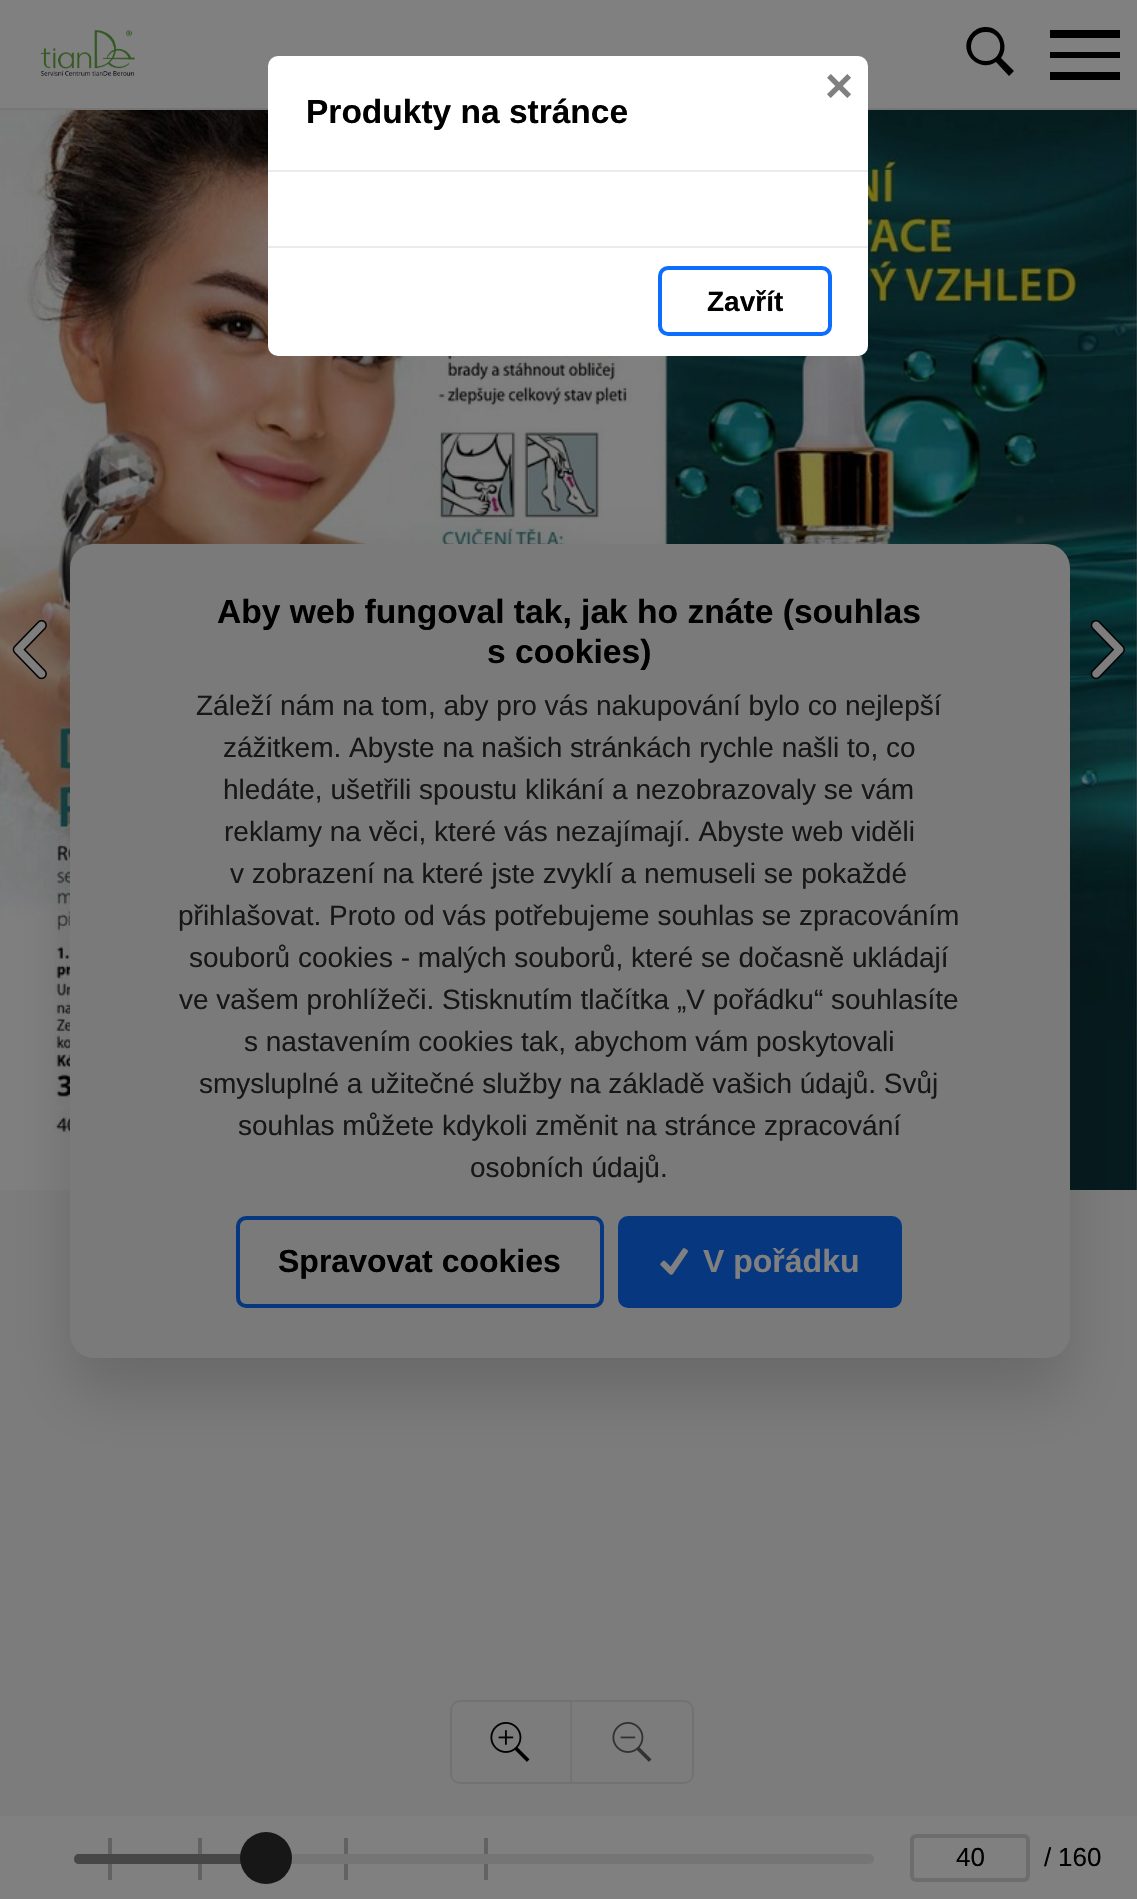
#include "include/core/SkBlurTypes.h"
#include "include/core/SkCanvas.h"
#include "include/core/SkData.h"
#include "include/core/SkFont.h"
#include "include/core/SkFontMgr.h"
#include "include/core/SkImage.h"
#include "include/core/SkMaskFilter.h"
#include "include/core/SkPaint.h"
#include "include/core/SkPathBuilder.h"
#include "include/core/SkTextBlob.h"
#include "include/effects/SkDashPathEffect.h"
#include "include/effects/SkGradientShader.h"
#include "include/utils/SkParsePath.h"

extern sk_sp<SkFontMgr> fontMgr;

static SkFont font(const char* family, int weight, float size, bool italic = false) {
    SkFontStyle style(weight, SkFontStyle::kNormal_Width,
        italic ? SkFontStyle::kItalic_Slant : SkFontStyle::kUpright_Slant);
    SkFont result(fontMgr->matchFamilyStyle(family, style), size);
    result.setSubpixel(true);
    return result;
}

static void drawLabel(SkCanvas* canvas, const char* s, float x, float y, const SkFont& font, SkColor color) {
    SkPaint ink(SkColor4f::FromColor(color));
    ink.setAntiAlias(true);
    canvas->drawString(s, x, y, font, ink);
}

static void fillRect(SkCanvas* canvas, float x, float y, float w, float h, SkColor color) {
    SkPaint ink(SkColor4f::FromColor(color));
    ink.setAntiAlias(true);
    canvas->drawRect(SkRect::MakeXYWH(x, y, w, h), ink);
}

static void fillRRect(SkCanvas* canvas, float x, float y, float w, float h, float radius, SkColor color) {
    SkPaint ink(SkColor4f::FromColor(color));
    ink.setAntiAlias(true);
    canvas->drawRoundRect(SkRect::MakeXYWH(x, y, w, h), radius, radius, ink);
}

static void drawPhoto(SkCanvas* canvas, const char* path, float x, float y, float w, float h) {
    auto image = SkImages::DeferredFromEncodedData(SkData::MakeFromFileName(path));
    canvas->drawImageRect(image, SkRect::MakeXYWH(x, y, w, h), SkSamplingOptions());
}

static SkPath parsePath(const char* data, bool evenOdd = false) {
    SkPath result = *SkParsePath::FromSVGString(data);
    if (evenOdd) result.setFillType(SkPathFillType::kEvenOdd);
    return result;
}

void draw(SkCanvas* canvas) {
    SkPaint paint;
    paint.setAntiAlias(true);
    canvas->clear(0xFF7C7C7C);
    fillRect(canvas, 0, 0, 1137, 108, 0xFF808080);
    fillRect(canvas, 0, 108, 1137, 2, 0xFF767676);
    drawPhoto(canvas, "assets/img1.png", 40, 30, 95, 46);
    paint.setColor(0xFF000000);
    canvas->drawPath(parsePath("M986 27C980 27 976 29 972 33C956 49 977 74 996 62L1009 76L1014 71L1001 58C1010 46 1001 27 986 27ZM986 32C1005 32 1005 61 986 61C966 61 966 32 986 32Z"), paint);
    canvas->drawPath(parsePath("M1050 30V38H1120V30ZM1050 52V58H1120V52ZM1050 72V80H1120V72Z"), paint);
    drawPhoto(canvas, "assets/img2.png", 0, 110, 1137, 1080);
    fillRRect(canvas, 268, 56, 600, 300, 10, 0xFFFFFFFF);
    fillRect(canvas, 268, 170, 600, 2, 0xFFE9ECEF);
    SkFont font1 = font("Liberation Sans", 700, 48);
    drawLabel(canvas, "×", 825, 102, font1, 0xFF808080);
    SkFont font2 = font("Liberation Sans", 700, 33.5f);
    drawLabel(canvas, "Produkty na stránce", 306, 123, font2, 0xFF000000);
    fillRect(canvas, 268, 246, 600, 2, 0xFFE9ECEF);
    paint.setStroke(true);
    paint.setStrokeWidth(4);
    paint.setColor(0xFF0D6EFD);
    canvas->drawRoundRect(SkRect::MakeXYWH(660, 268, 170, 66), 8, 8, paint);
    SkFont font3 = font("Liberation Sans", 700, 28);
    drawLabel(canvas, "Zavřít", 707, 311, font3, 0xFF000000);
    drawPhoto(canvas, "assets/img3.png", 12, 620, 35, 60);
    drawPhoto(canvas, "assets/img4.png", 1090, 620, 35, 60);
    paint.setStrokeWidth(2);
    paint.setColor(0xFF727272);
    canvas->drawRoundRect(SkRect::MakeXYWH(451, 1701, 242, 82), 9, 9, paint);
    drawPhoto(canvas, "assets/img5.png", 490, 1722, 40, 40);
    fillRect(canvas, 570, 1702, 2, 80, 0xFF747474);
    drawPhoto(canvas, "assets/img6.png", 612, 1722, 40, 40);
    paint.setStroke(false);
    paint.setColor(0x26000000);
    paint.setMaskFilter(SkMaskFilter::MakeBlur(kNormal_SkBlurStyle, 30));
    canvas->drawRoundRect(SkRect::MakeXYWH(70, 580, 1000, 814), 24, 24, paint);
    paint.setMaskFilter(nullptr);
    fillRRect(canvas, 70, 544, 1000, 814, 24, 0xFF7A7A7A);
    SkFont font4 = font("Liberation Sans", 700, 33.6f);
    drawLabel(canvas, "Aby web fungoval tak, jak ho znáte (souhlas", 217, 623, font4, 0xFF000000);
    drawLabel(canvas, "s cookies)", 487, 663, font4, 0xFF000000);
    SkFont font5 = font("Liberation Sans", 400, 28);
    drawLabel(canvas, "Záleží nám na tom, aby pro vás nakupování bylo co nejlepší", 196, 715, font5, 0xFF171717);
    drawLabel(canvas, "zážitkem. Abyste na našich stránkách rychle našli to, co", 223, 757, font5, 0xFF171717);
    drawLabel(canvas, "hledáte, ušetřili spoustu klikání a nezobrazovaly se vám", 223, 799, font5, 0xFF171717);
    drawLabel(canvas, "reklamy na věci, které vás nezajímají. Abyste web viděli", 224, 841, font5, 0xFF171717);
    drawLabel(canvas, "v zobrazení na které jste zvyklí a nemuseli se pokaždé", 230, 883, font5, 0xFF171717);
    drawLabel(canvas, "přihlašovat. Proto od vás potřebujeme souhlas se zpracováním", 178, 925, font5, 0xFF171717);
    drawLabel(canvas, "souborů cookies - malých souborů, které se dočasně ukládají", 189, 967, font5, 0xFF171717);
    drawLabel(canvas, "ve vašem prohlížeči. Stisknutím tlačítka „V pořádku“ souhlasíte", 179, 1009, font5, 0xFF171717);
    drawLabel(canvas, "s nastavením cookies tak, abychom vám poskytovali", 244, 1051, font5, 0xFF171717);
    drawLabel(canvas, "smysluplné a užitečné služby na základě vašich údajů. Svůj", 199, 1093, font5, 0xFF171717);
    drawLabel(canvas, "souhlas můžete kdykoli změnit na stránce zpracování", 238, 1135, font5, 0xFF171717);
    drawLabel(canvas, "osobních údajů.", 470, 1177, font5, 0xFF171717);
    paint.setStroke(true);
    paint.setStrokeWidth(4);
    paint.setColor(0xFF07377F);
    canvas->drawRoundRect(SkRect::MakeXYWH(238, 1218, 364, 88), 8, 8, paint);
    SkFont font6 = font("Liberation Sans", 700, 32);
    drawLabel(canvas, "Spravovat cookies", 278, 1272, font6, 0xFF000000);
    paint.setStroke(false);
    canvas->drawRoundRect(SkRect::MakeXYWH(620, 1218, 280, 88), 8, 8, paint);
    paint.setStroke(true);
    canvas->drawRoundRect(SkRect::MakeXYWH(620, 1218, 280, 88), 8, 8, paint);
    drawPhoto(canvas, "assets/img7.png", 660, 1248, 28, 27);
    drawLabel(canvas, "V pořádku", 703, 1272, font6, 0xFF808080);
    fillRect(canvas, 0, 1816, 1137, 83, 0xFF808080);
    fillRect(canvas, 108, 1838, 4, 42, 0xFF626262);
    fillRect(canvas, 198, 1838, 4, 42, 0xFF626262);
    fillRect(canvas, 344, 1838, 4, 42, 0xFF626262);
    fillRect(canvas, 484, 1838, 4, 42, 0xFF626262);
    fillRRect(canvas, 74, 1854, 800, 10, 5, 0xFF757575);
    paint.setStroke(false);
    paint.setColor(0xFF474747);
    canvas->drawPath(parsePath("M79 1854H270V1864H79C76 1864 74 1862 74 1859C74 1856 76 1854 79 1854Z"), paint);
    paint.setColor(0xFF171717);
    canvas->drawCircle(266, 1858, 26, paint);
    paint.setStroke(true);
    paint.setColor(0xFF6D6D6D);
    canvas->drawRoundRect(SkRect::MakeXYWH(912, 1836, 116, 44), 4, 4, paint);
    SkFont font7 = font("Liberation Sans", 400, 26);
    drawLabel(canvas, "40", 956, 1866, font7, 0xFF000000);
    drawLabel(canvas, "/", 1044, 1866, font7, 0xFF000000);
    drawLabel(canvas, "160", 1058, 1866, font7, 0xFF000000);
}
